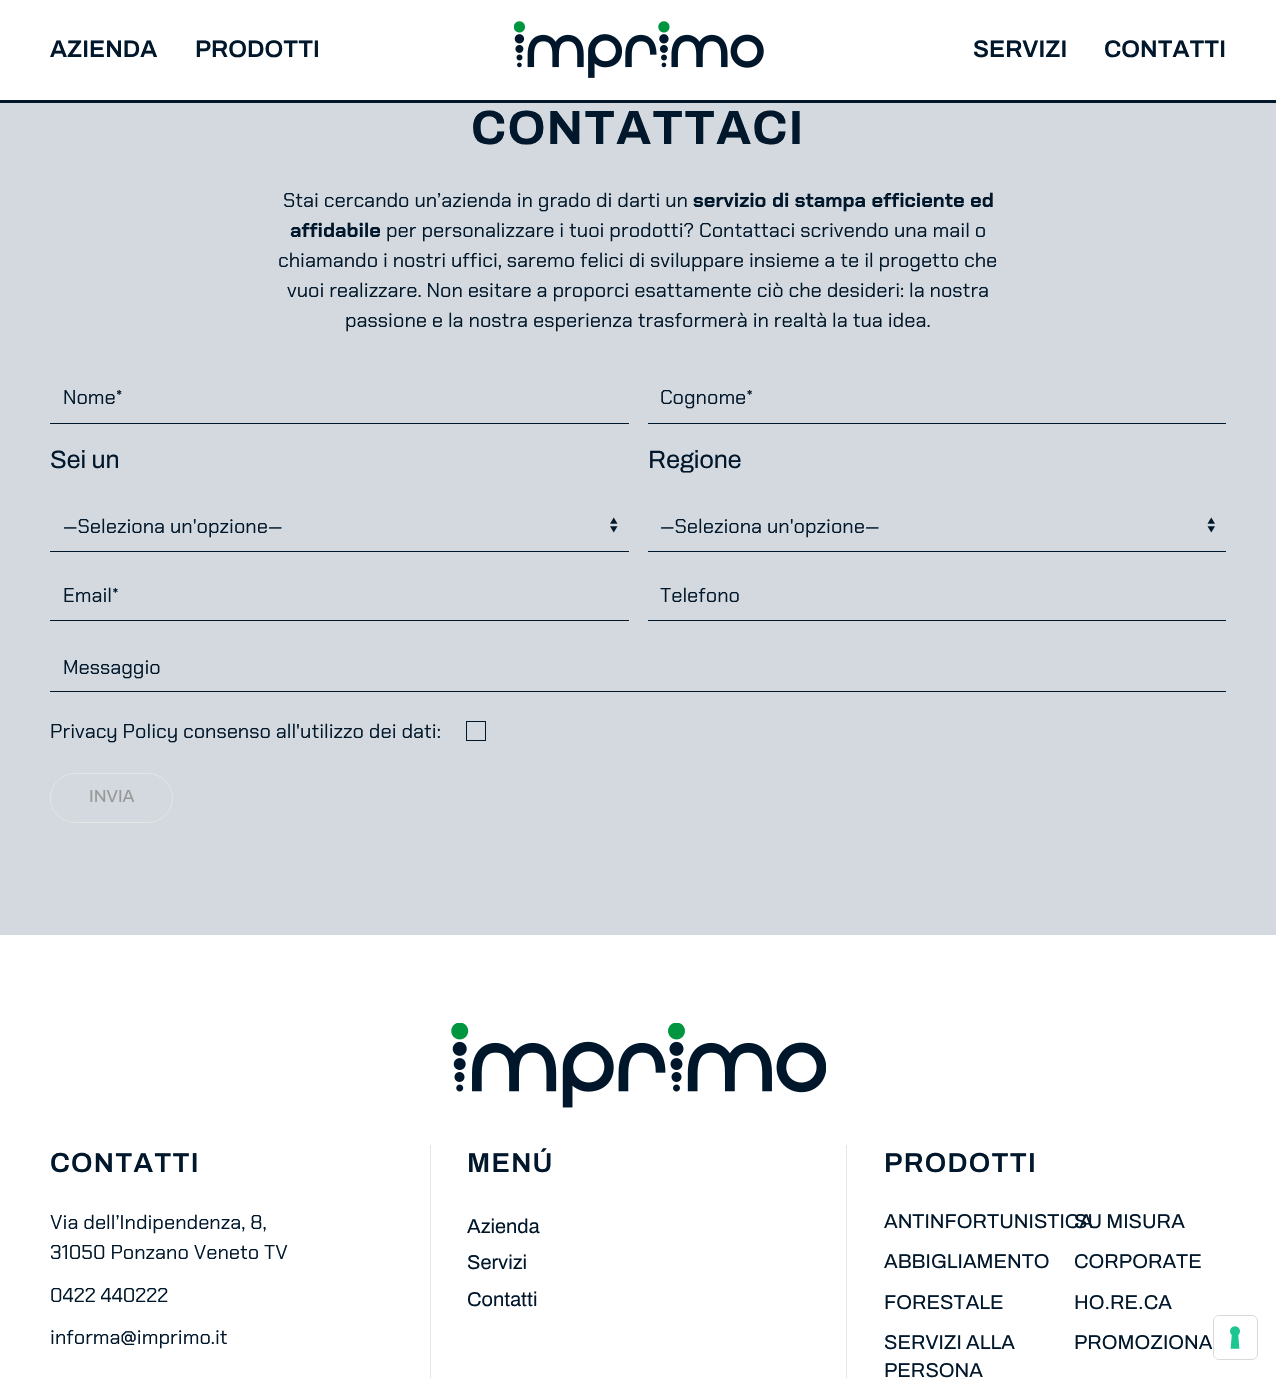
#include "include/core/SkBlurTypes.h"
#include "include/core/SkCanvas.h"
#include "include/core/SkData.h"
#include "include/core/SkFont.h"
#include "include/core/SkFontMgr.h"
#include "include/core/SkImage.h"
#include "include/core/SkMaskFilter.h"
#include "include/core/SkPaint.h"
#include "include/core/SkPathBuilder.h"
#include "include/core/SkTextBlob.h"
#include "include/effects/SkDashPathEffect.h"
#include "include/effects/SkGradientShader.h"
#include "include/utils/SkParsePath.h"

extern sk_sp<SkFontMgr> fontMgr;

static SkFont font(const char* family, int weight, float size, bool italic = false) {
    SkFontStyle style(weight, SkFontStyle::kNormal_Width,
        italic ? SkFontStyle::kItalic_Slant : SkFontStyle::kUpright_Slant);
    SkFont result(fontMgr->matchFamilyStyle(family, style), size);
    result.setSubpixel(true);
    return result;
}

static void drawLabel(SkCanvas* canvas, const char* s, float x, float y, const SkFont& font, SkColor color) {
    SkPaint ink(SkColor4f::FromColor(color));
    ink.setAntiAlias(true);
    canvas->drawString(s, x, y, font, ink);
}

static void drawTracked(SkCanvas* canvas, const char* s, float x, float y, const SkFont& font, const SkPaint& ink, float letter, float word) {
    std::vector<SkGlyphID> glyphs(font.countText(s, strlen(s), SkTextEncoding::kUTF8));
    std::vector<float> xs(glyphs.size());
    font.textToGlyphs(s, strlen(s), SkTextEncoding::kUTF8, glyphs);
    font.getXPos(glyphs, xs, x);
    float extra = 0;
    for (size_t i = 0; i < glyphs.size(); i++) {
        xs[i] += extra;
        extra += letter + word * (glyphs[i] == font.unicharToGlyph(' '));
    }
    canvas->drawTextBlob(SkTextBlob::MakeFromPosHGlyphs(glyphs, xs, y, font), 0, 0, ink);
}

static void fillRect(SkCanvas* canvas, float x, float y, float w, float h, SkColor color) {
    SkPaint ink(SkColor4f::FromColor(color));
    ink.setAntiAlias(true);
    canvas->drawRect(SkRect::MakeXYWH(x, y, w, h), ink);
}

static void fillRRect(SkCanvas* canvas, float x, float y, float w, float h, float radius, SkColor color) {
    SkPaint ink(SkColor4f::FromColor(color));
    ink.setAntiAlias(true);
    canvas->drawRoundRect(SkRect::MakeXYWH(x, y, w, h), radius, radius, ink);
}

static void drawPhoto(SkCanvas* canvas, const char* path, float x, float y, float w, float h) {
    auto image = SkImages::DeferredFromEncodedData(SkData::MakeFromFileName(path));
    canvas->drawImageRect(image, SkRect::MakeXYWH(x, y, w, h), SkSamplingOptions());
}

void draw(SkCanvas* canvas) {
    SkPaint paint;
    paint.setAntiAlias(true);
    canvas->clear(0xFFFFFFFF);
    fillRect(canvas, 0, 100, 1276, 3, 0xFF01172B);
    SkFont font1 = font("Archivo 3", 600, 24);
    drawLabel(canvas, "AZIENDA", 50, 57, font1, 0xFF01172B);
    drawLabel(canvas, "PRODOTTI", 195, 57, font1, 0xFF01172B);
    drawPhoto(canvas, "assets/img1.png", 514, 21, 250, 57);
    drawLabel(canvas, "SERVIZI", 973, 57, font1, 0xFF01172B);
    drawLabel(canvas, "CONTATTI", 1104, 57, font1, 0xFF01172B);
    fillRect(canvas, 0, 103, 1276, 832, 0xFFD3D9DE);
    SkFont font2 = font("Archivo", 600, 48);
    paint.setColor(0xFF01172B);
    drawTracked(canvas, "CONTATTACI", 471, 144, font2, paint, 1.25f, 0);
    SkFont font3 = font("Chakra Petch", 400, 20);
    drawLabel(canvas, "Stai cercando un’azienda in grado di darti un", 283, 207, font3, 0xFF01172B);
    SkFont font4 = font("Chakra Petch", 700, 20);
    drawLabel(canvas, "servizio di stampa efficiente ed", 693, 207, font4, 0xFF01172B);
    drawLabel(canvas, "affidabile", 290, 237, font4, 0xFF01172B);
    drawLabel(canvas, "per personalizzare i tuoi prodotti? Contattaci scrivendo una mail o", 386, 237, font3, 0xFF01172B);
    drawLabel(canvas, "chiamando i nostri uffici, saremo felici di sviluppare insieme a te il progetto che", 278, 267, font3, 0xFF01172B);
    drawLabel(canvas, "vuoi realizzare. Non esitare a proporci esattamente ciò che desideri: la nostra", 287, 297, font3, 0xFF01172B);
    drawLabel(canvas, "passione e la nostra esperienza trasformerà in realtà la tua idea.", 345, 327, font3, 0xFF01172B);
    fillRect(canvas, 50, 423, 579, 1, 0xFF01172B);
    drawLabel(canvas, "Nome*", 63, 404, font3, 0xFF01172B);
    fillRect(canvas, 648, 423, 578, 1, 0xFF01172B);
    drawLabel(canvas, "Cognome*", 660, 404, font3, 0xFF01172B);
    SkFont font5 = font("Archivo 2", 600, 25);
    drawLabel(canvas, "Sei un", 50, 468, font5, 0xFF01172B);
    drawPhoto(canvas, "assets/img2.png", 610, 517, 8, 16);
    fillRect(canvas, 50, 551, 579, 1, 0xFF01172B);
    drawLabel(canvas, "—Seleziona un'opzione—", 63, 533, font3, 0xFF01172B);
    drawLabel(canvas, "Regione", 648, 468, font5, 0xFF01172B);
    drawPhoto(canvas, "assets/img3.png", 1207, 517, 8, 16);
    fillRect(canvas, 648, 551, 578, 1, 0xFF01172B);
    drawLabel(canvas, "—Seleziona un'opzione—", 660, 533, font3, 0xFF01172B);
    fillRect(canvas, 50, 620, 579, 1, 0xFF01172B);
    drawLabel(canvas, "Email*", 63, 602, font3, 0xFF01172B);
    fillRect(canvas, 648, 620, 578, 1, 0xFF01172B);
    drawLabel(canvas, "Telefono", 660, 602, font3, 0xFF01172B);
    fillRect(canvas, 50, 691, 1176, 1, 0xFF01172B);
    drawLabel(canvas, "Messaggio", 63, 674, font3, 0xFF01172B);
    drawLabel(canvas, "Privacy Policy consenso all'utilizzo dei dati:", 50, 738, font3, 0xFF01172B);
    paint.setStroke(true);
    paint.setStrokeWidth(1);
    canvas->drawRect(SkRect::MakeXYWH(466.5f, 721.5f, 19, 19), paint);
    paint.setColor(0xFFE5E5E5);
    canvas->drawRoundRect(SkRect::MakeXYWH(50.5f, 773.5f, 122, 49), 24.5f, 24.5f, paint);
    SkFont font6 = font("Archivo 2", 600, 17.5f);
    drawLabel(canvas, "INVIA", 89, 802, font6, 0xFF999999);
    drawPhoto(canvas, "assets/img4.png", 451, 1023, 375, 85);
    SkFont font7 = font("Archivo 3", 600, 27.5f);
    paint.setStroke(false);
    paint.setColor(0xFF01172B);
    drawTracked(canvas, "CONTATTI", 50, 1172, font7, paint, 1.25f, 0);
    drawLabel(canvas, "Via dell’Indipendenza, 8,", 50, 1229, font3, 0xFF01172B);
    drawLabel(canvas, "31050 Ponzano Veneto TV", 50, 1259, font3, 0xFF01172B);
    drawLabel(canvas, "0422 440222", 50, 1302, font3, 0xFF01172B);
    drawLabel(canvas, "informa@imprimo.it", 50, 1344, font3, 0xFF01172B);
    fillRect(canvas, 430, 1145, 1, 233, 0xFFE5E5E5);
    drawTracked(canvas, "MENÚ", 467, 1172, font7, paint, 1.25f, 0);
    SkFont font8 = font("Archivo 2", 600, 20);
    drawLabel(canvas, "Azienda", 467, 1233, font8, 0xFF01172B);
    drawLabel(canvas, "Servizi", 467, 1269, font8, 0xFF01172B);
    drawLabel(canvas, "Contatti", 467, 1306, font8, 0xFF01172B);
    fillRect(canvas, 846, 1145, 1, 233, 0xFFE5E5E5);
    drawTracked(canvas, "PRODOTTI", 884, 1172, font7, paint, 1.25f, 0);
    drawLabel(canvas, "ANTINFORTUNISTICA", 884, 1228, font8, 0xFF01172B);
    drawLabel(canvas, "SU MISURA", 1074, 1228, font8, 0xFF01172B);
    drawLabel(canvas, "ABBIGLIAMENTO", 884, 1268, font8, 0xFF01172B);
    drawLabel(canvas, "CORPORATE", 1074, 1268, font8, 0xFF01172B);
    drawLabel(canvas, "FORESTALE", 884, 1309, font8, 0xFF01172B);
    drawLabel(canvas, "HO.RE.CA", 1074, 1309, font8, 0xFF01172B);
    drawLabel(canvas, "SERVIZI ALLA", 884, 1349, font8, 0xFF01172B);
    drawLabel(canvas, "PERSONA", 884, 1377, font8, 0xFF01172B);
    drawLabel(canvas, "PROMOZIONA", 1074, 1349, font8, 0xFF01172B);
    paint.setStroke(true);
    paint.setColor(0xFFD9D9D9);
    canvas->drawRoundRect(SkRect::MakeXYWH(1213.5f, 1315.5f, 44, 44), 5.5f, 5.5f, paint);
    fillRRect(canvas, 1214, 1316, 42, 43, 5, 0xFFFFFFFF);
    drawPhoto(canvas, "assets/img5.png", 1230, 1326, 10, 23);
}
